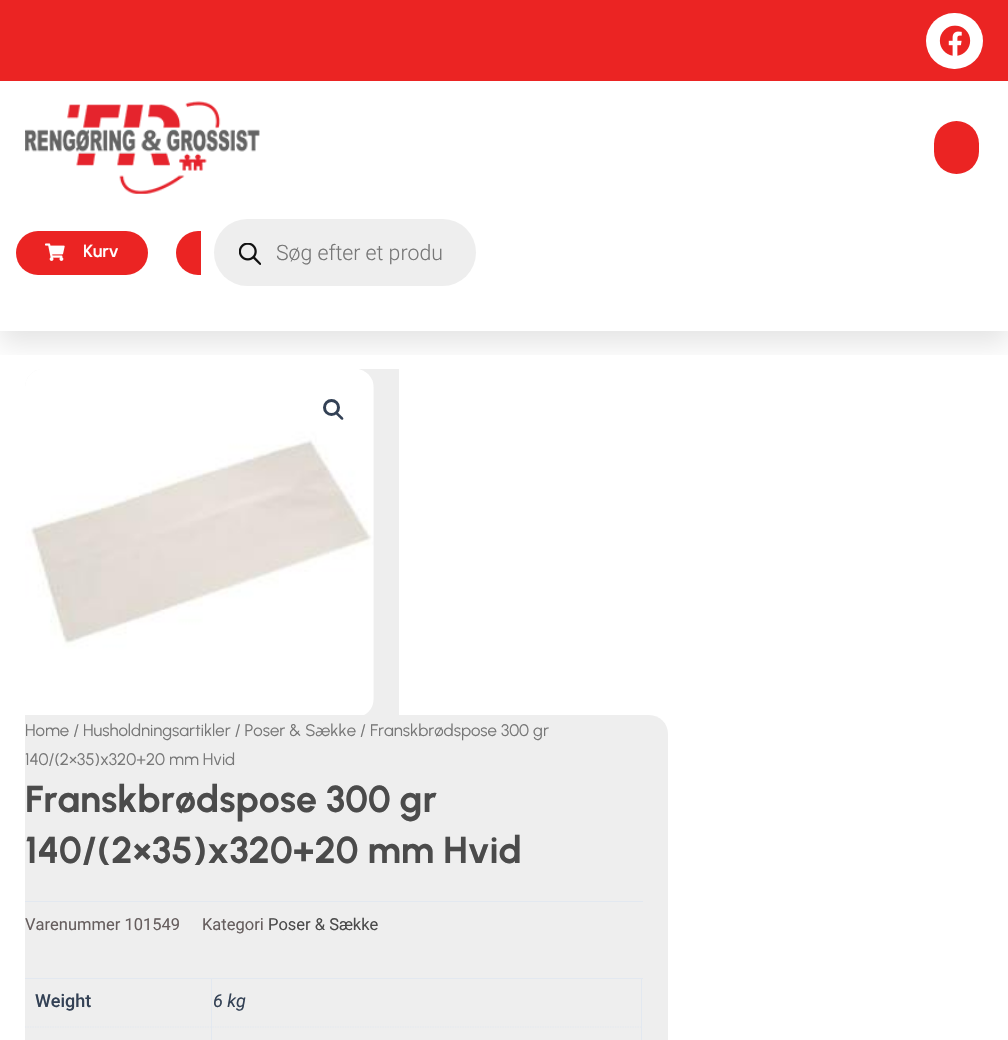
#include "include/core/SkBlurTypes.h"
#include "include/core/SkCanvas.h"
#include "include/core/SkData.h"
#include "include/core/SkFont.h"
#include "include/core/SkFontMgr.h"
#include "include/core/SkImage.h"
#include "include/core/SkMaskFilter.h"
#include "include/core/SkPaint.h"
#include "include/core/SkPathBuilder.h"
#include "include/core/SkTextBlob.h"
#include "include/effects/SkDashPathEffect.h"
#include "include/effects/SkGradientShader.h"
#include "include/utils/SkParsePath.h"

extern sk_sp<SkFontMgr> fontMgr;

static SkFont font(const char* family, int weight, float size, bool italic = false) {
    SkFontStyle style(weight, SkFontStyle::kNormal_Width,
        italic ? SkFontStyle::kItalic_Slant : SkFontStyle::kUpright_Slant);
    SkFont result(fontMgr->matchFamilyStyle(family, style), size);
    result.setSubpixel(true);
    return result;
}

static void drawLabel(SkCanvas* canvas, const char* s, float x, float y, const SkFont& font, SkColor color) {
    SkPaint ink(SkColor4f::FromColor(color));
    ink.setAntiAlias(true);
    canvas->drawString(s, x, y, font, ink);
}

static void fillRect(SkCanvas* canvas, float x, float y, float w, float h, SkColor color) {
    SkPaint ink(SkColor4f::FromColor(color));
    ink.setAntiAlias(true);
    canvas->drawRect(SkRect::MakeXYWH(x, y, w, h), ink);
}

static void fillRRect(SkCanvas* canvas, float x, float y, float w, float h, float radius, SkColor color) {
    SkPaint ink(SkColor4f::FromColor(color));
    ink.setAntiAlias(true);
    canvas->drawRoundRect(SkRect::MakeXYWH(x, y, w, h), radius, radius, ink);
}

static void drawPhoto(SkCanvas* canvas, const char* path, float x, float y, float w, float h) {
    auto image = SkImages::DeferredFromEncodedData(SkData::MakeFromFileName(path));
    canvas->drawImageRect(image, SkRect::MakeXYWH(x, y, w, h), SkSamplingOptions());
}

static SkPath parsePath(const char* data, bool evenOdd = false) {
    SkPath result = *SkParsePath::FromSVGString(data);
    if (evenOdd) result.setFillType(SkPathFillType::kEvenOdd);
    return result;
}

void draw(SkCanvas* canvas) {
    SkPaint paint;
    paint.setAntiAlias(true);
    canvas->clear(0xFFFFFFFF);
    fillRect(canvas, 0, 0, 1008, 81, 0xFFEB2423);
    fillRRect(canvas, 926, 13, 57, 56, 28, 0xFFFFFFFF);
    drawPhoto(canvas, "assets/img1.png", 939, 25, 32, 31);
    paint.setColor(0xFFEEEEEE);
    canvas->drawPath(parsePath("M44 369H399V715H44C33.5 715 25 706.5 25 696V388C25 377.5 33.5 369 44 369Z"), paint);
    drawPhoto(canvas, "assets/img5.png", 25, 369, 349, 346);
    canvas->save();
    canvas->clipRect(SkRect::MakeXYWH(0, 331, 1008, 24));
    paint.setColor(0x1A000000);
    paint.setMaskFilter(SkMaskFilter::MakeBlur(kNormal_SkBlurStyle, 12.5f));
    canvas->drawRect(SkRect::MakeXYWH(0, 94, 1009, 250), paint);
    paint.setMaskFilter(nullptr);
    canvas->restore();
    drawPhoto(canvas, "assets/img2.png", 25, 101, 235, 93);
    fillRRect(canvas, 934, 121, 45, 53, 22.5f, 0xFFEB2423);
    fillRRect(canvas, 16, 231, 132, 44, 22, 0xFFEB2423);
    drawPhoto(canvas, "assets/img3.png", 45, 243, 20, 18);
    SkFont font1 = font("Urbanist", 600, 17.5f);
    drawLabel(canvas, "Kurv", 83, 257, font1, 0xFFFFFFFF);
    fillRRect(canvas, 176, 231, 135, 44, 22, 0xFFEB2423);
    fillRRect(canvas, 201, 206, 288, 93, 13, 0xFFFFFFFF);
    fillRRect(canvas, 214, 219, 262, 67, 33.5f, 0xFFEEEEEE);
    drawPhoto(canvas, "assets/img4.png", 239, 243, 22, 22);
    SkFont font2 = font("Roboto", 300, 21.25f);
    drawLabel(canvas, "Søg efter et produ", 276, 260, font2, 0xFF777777);
    paint.setStroke(true);
    paint.setStrokeWidth(3);
    paint.setColor(0xFF334155);
    canvas->drawCircle(331.5f, 407.5f, 7, paint);
    paint.setStroke(false);
    canvas->drawPath(parsePath("M336 412.5C337.5 411 339.5 414.5 340.5 415C341 416 344.5 418 343 419.5C341.5 421 339.5 417.5 338.5 417C338 416 334.5 414 336 412.5Z"), paint);
    paint.setColor(0xFFEEEEEE);
    canvas->drawPath(parsePath("M25 715H649C659.5 715 668 723.5 668 734V1040C668 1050.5 659.5 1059 649 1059H25Z"), paint);
    SkFont font3 = font("Urbanist", 400, 16.75f);
    drawLabel(canvas, "Home / Husholdningsartikler / Poser & Sække / Franskbrødspose 300 gr", 25, 736, font3, 0xFF777777);
    drawLabel(canvas, "140/(2×35)x320+20 mm Hvid", 25, 765, font3, 0xFF777777);
    SkFont font4 = font("Urbanist", 700, 37.5f);
    drawLabel(canvas, "Franskbrødspose 300 gr", 25, 812, font4, 0xFF4B4B4B);
    drawLabel(canvas, "140/(2×35)x320+20 mm Hvid", 25, 863, font4, 0xFF4B4B4B);
    fillRect(canvas, 25, 901, 618, 1, 0xFFE2E8F0);
    SkFont font5 = font("Roboto", 400, 16.5f);
    drawLabel(canvas, "Varenummer 101549", 25, 930, font5, 0xFF665E5E);
    drawLabel(canvas, "Kategori", 202, 930, font5, 0xFF665E5E);
    drawLabel(canvas, "Poser & Sække", 268, 930, font5, 0xFF4B4B4B);
    fillRect(canvas, 25, 978, 618, 1, 0xFFE2E8F0);
    fillRect(canvas, 211, 979, 1, 61, 0xFFE2E8F0);
    paint.setStroke(true);
    paint.setStrokeWidth(1.2f);
    paint.setColor(0xFFE2E8F0);
    paint.setPathEffect(SkDashPathEffect::Make({{1.25f, 1.25f}}, 0));
    canvas->drawPath(parsePath("M25 1027H212.5"), paint);
    paint.setPathEffect(nullptr);
    SkFont font6 = font("Roboto", 500, 18);
    drawLabel(canvas, "Weight", 35, 1007, font6, 0xFF334155);
    fillRect(canvas, 641, 979, 1, 61, 0xFFE2E8F0);
    paint.setPathEffect(SkDashPathEffect::Make({{1.25f, 1.25f}}, 0));
    canvas->drawPath(parsePath("M212.5 1027H642.5"), paint);
    paint.setPathEffect(nullptr);
    SkFont font7 = font("Roboto", 400, 18, true);
    drawLabel(canvas, "6 kg", 213, 1007, font7, 0xFF334155);
}
